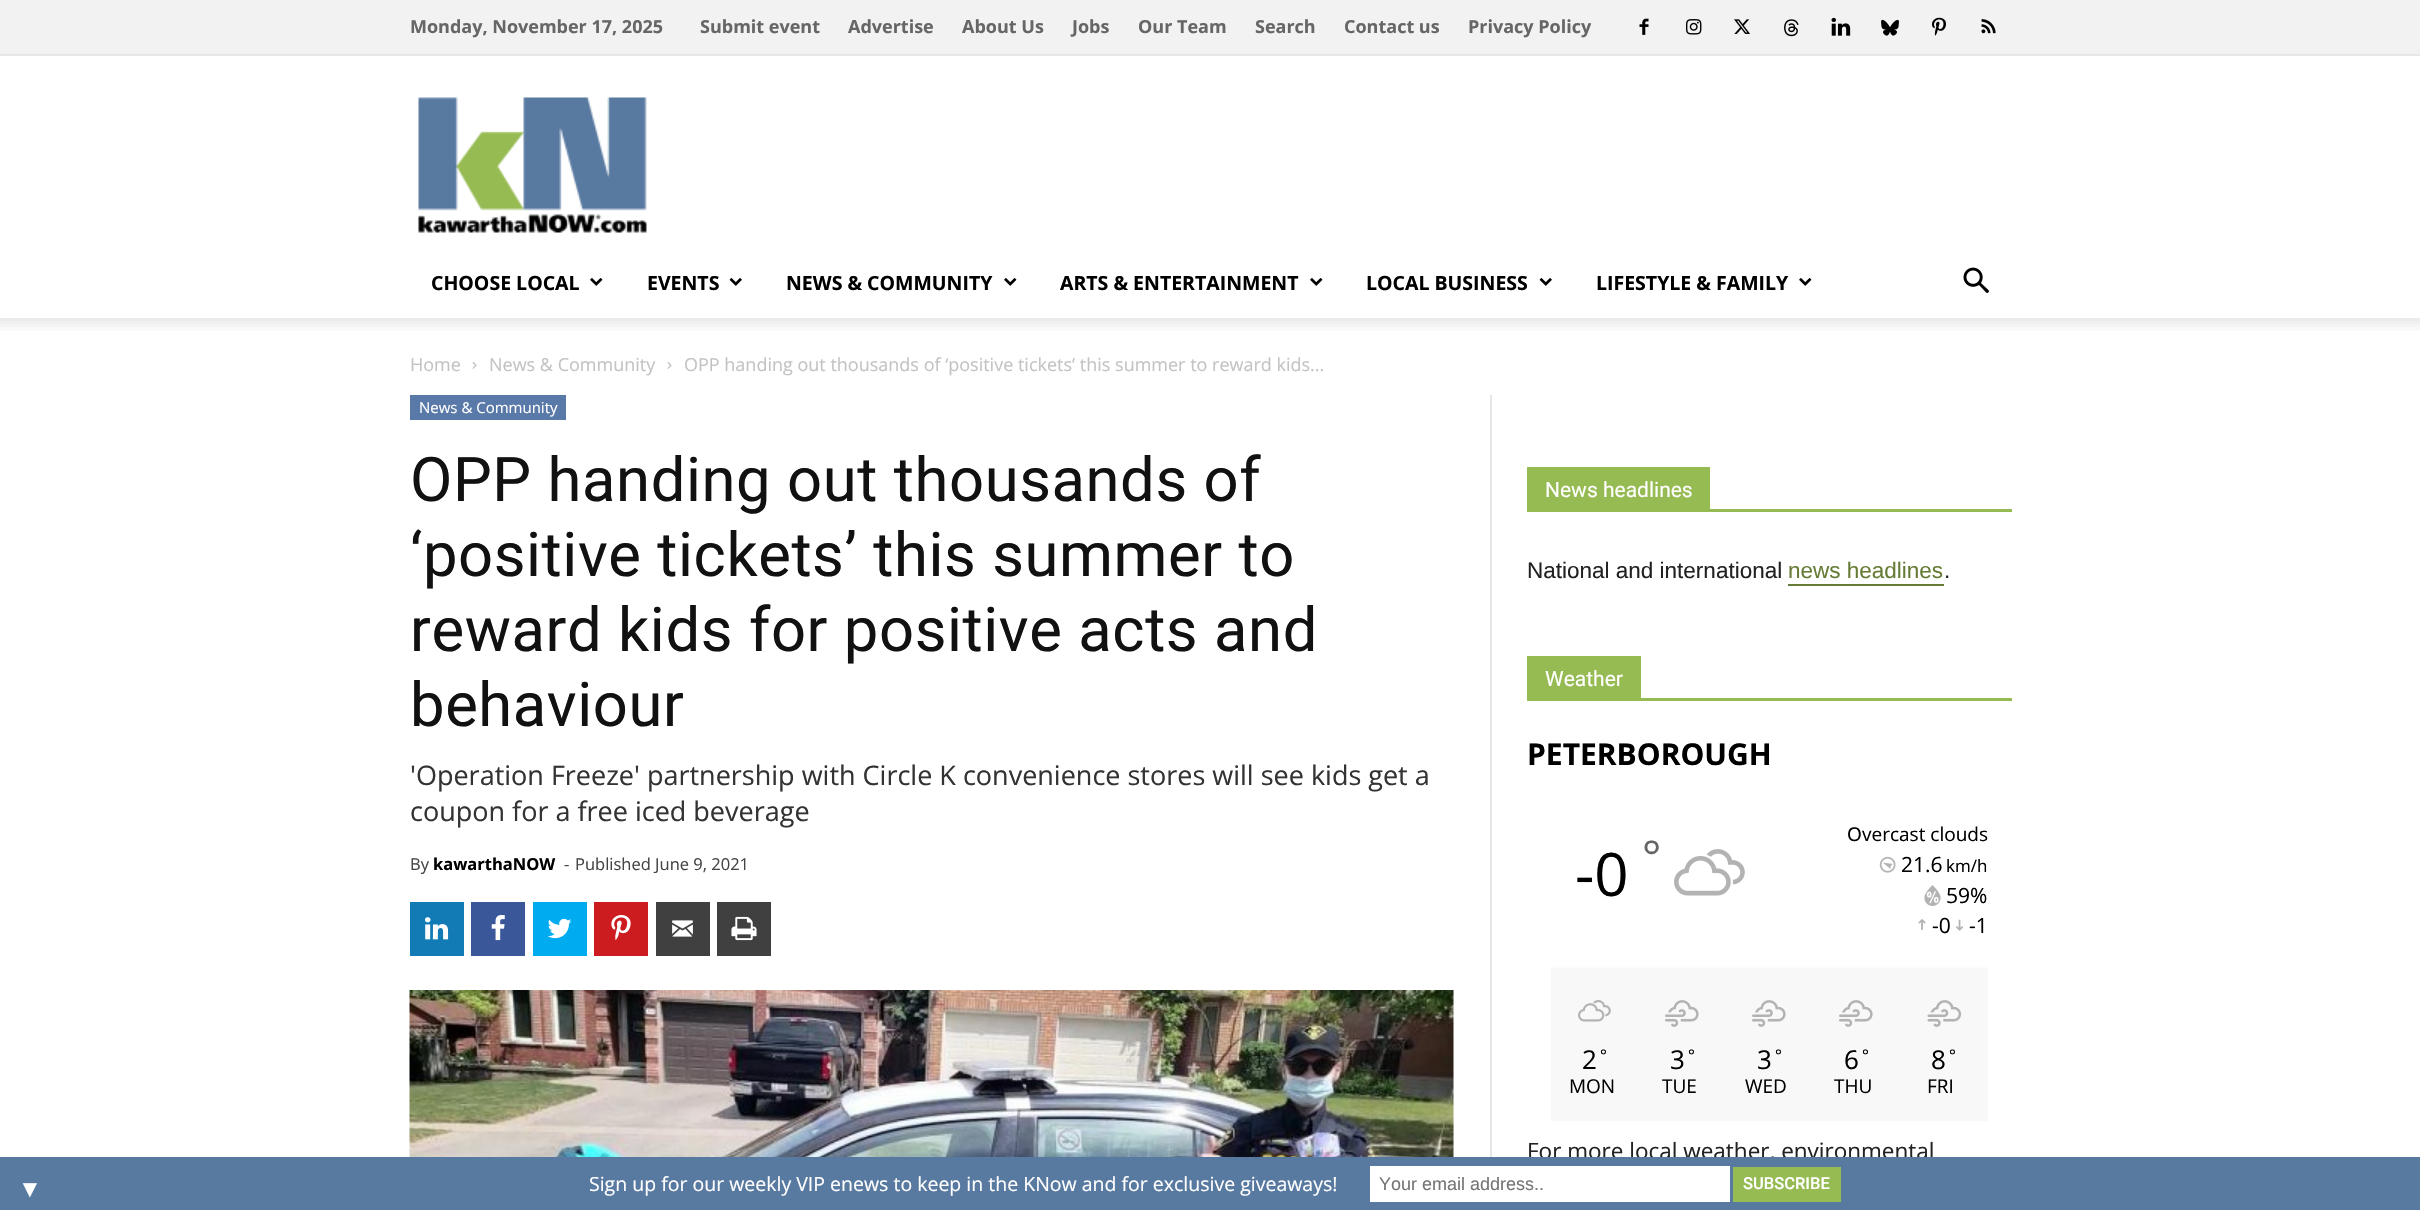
#include "include/core/SkBlurTypes.h"
#include "include/core/SkCanvas.h"
#include "include/core/SkData.h"
#include "include/core/SkFont.h"
#include "include/core/SkFontMgr.h"
#include "include/core/SkImage.h"
#include "include/core/SkMaskFilter.h"
#include "include/core/SkPaint.h"
#include "include/core/SkPathBuilder.h"
#include "include/core/SkTextBlob.h"
#include "include/effects/SkDashPathEffect.h"
#include "include/effects/SkGradientShader.h"
#include "include/utils/SkParsePath.h"

extern sk_sp<SkFontMgr> fontMgr;

static SkFont font(const char* family, int weight, float size, bool italic = false) {
    SkFontStyle style(weight, SkFontStyle::kNormal_Width,
        italic ? SkFontStyle::kItalic_Slant : SkFontStyle::kUpright_Slant);
    SkFont result(fontMgr->matchFamilyStyle(family, style), size);
    result.setSubpixel(true);
    return result;
}

static void drawLabel(SkCanvas* canvas, const char* s, float x, float y, const SkFont& font, SkColor color) {
    SkPaint ink(SkColor4f::FromColor(color));
    ink.setAntiAlias(true);
    canvas->drawString(s, x, y, font, ink);
}

static void drawTracked(SkCanvas* canvas, const char* s, float x, float y, const SkFont& font, const SkPaint& ink, float letter, float word) {
    std::vector<SkGlyphID> glyphs(font.countText(s, strlen(s), SkTextEncoding::kUTF8));
    std::vector<float> xs(glyphs.size());
    font.textToGlyphs(s, strlen(s), SkTextEncoding::kUTF8, glyphs);
    font.getXPos(glyphs, xs, x);
    float extra = 0;
    for (size_t i = 0; i < glyphs.size(); i++) {
        xs[i] += extra;
        extra += letter + word * (glyphs[i] == font.unicharToGlyph(' '));
    }
    canvas->drawTextBlob(SkTextBlob::MakeFromPosHGlyphs(glyphs, xs, y, font), 0, 0, ink);
}

static void fillRect(SkCanvas* canvas, float x, float y, float w, float h, SkColor color) {
    SkPaint ink(SkColor4f::FromColor(color));
    ink.setAntiAlias(true);
    canvas->drawRect(SkRect::MakeXYWH(x, y, w, h), ink);
}

static void drawPhoto(SkCanvas* canvas, const char* path, float x, float y, float w, float h) {
    auto image = SkImages::DeferredFromEncodedData(SkData::MakeFromFileName(path));
    canvas->drawImageRect(image, SkRect::MakeXYWH(x, y, w, h), SkSamplingOptions());
}

void draw(SkCanvas* canvas) {
    SkPaint paint;
    paint.setAntiAlias(true);
    canvas->clear(0xFFFFFFFF);
    fillRect(canvas, 0, 0, 2420, 54, 0xFFF2F2F2);
    fillRect(canvas, 0, 54, 2420, 2, 0xFFE7E7E7);
    SkFont font1 = font("Open Sans", 700, 18);
    drawLabel(canvas, "Monday, November 17, 2025", 410, 33, font1, 0xFF666666);
    drawLabel(canvas, "Submit event", 700, 33, font1, 0xFF666666);
    drawLabel(canvas, "Advertise", 848, 33, font1, 0xFF666666);
    drawLabel(canvas, "About Us", 962, 33, font1, 0xFF666666);
    drawLabel(canvas, "Jobs", 1072, 33, font1, 0xFF666666);
    drawLabel(canvas, "Our Team", 1138, 33, font1, 0xFF666666);
    drawLabel(canvas, "Search", 1255, 33, font1, 0xFF666666);
    drawLabel(canvas, "Contact us", 1344, 33, font1, 0xFF666666);
    drawLabel(canvas, "Privacy Policy", 1468, 33, font1, 0xFF666666);
    drawPhoto(canvas, "assets/img1.png", 1639, 18, 10, 17);
    drawPhoto(canvas, "assets/img2.png", 1686, 19, 16, 16);
    drawPhoto(canvas, "assets/img3.png", 1734, 19, 16, 15);
    drawPhoto(canvas, "assets/img4.png", 1784, 19, 15, 18);
    drawPhoto(canvas, "assets/img5.png", 1831, 17, 20, 19);
    drawPhoto(canvas, "assets/img6.png", 1881, 19, 18, 17);
    drawPhoto(canvas, "assets/img7.png", 1932, 17, 14, 19);
    drawPhoto(canvas, "assets/img8.png", 1981, 19, 15, 15);
    drawPhoto(canvas, "assets/img9.png", 418, 97, 229, 136);
    SkFont font2 = font("Open Sans", 700, 19.5f);
    drawLabel(canvas, "CHOOSE LOCAL", 431, 290, font2, 0xFF000000);
    drawPhoto(canvas, "assets/img10.png", 590, 278, 13, 8);
    drawLabel(canvas, "EVENTS", 647, 290, font2, 0xFF000000);
    drawPhoto(canvas, "assets/img11.png", 729, 278, 13, 8);
    drawLabel(canvas, "NEWS & COMMUNITY", 786, 290, font2, 0xFF000000);
    drawPhoto(canvas, "assets/img10.png", 1004, 278, 13, 8);
    drawLabel(canvas, "ARTS & ENTERTAINMENT", 1060, 290, font2, 0xFF000000);
    drawPhoto(canvas, "assets/img10.png", 1310, 278, 13, 8);
    drawLabel(canvas, "LOCAL BUSINESS", 1366, 290, font2, 0xFF000000);
    drawPhoto(canvas, "assets/img11.png", 1539, 278, 13, 8);
    drawLabel(canvas, "LIFESTYLE & FAMILY", 1596, 290, font2, 0xFF000000);
    drawPhoto(canvas, "assets/img10.png", 1799, 278, 13, 8);
    drawPhoto(canvas, "assets/img12.png", 1963, 267, 26, 26);
    drawPhoto(canvas, "assets/img13.png", 0, 318, 2420, 13);
    SkFont font3 = font("Open Sans", 400, 18);
    drawLabel(canvas, "Home", 410, 371, font3, 0xFFC3C3C3);
    drawPhoto(canvas, "assets/img14.png", 472, 362, 5, 7);
    drawLabel(canvas, "News & Community", 489, 371, font3, 0xFFC3C3C3);
    drawPhoto(canvas, "assets/img14.png", 667, 362, 5, 7);
    drawLabel(canvas, "OPP handing out thousands of ‘positive tickets’ this summer to reward kids...", 684, 371, font3, 0xFFC3C3C3);
    fillRect(canvas, 410, 395, 156, 25, 0xFF5979A8);
    SkFont font4 = font("Open Sans", 400, 15);
    drawLabel(canvas, "News & Community", 419, 413, font4, 0xFFFFFFFF);
    SkFont font5 = font("Roboto", 400, 61.5f);
    paint.setColor(0xFF111111);
    drawTracked(canvas, "OPP handing out thousands of", 410, 501, font5, paint, 0.6f, 0);
    drawTracked(canvas, "‘positive tickets’ this summer to", 410, 576, font5, paint, 0.6f, 0);
    drawTracked(canvas, "reward kids for positive acts and", 410, 651, font5, paint, 0.6f, 0);
    drawTracked(canvas, "behaviour", 410, 726, font5, paint, 0.6f, 0);
    SkFont font6 = font("Open Sans", 400, 27);
    drawLabel(canvas, "'Operation Freeze' partnership with Circle K convenience stores will see kids get a", 410, 785, font6, 0xFF333333);
    drawLabel(canvas, "coupon for a free iced beverage", 410, 821, font6, 0xFF333333);
    SkFont font7 = font("Open Sans", 400, 16.5f);
    drawLabel(canvas, "By", 410, 870, font7, 0xFF444444);
    SkFont font8 = font("Open Sans", 700, 16.5f);
    drawLabel(canvas, "kawarthaNOW", 433, 870, font8, 0xFF000000);
    drawLabel(canvas, "-", 564, 870, font7, 0xFF444444);
    drawLabel(canvas, "Published June 9, 2021", 575, 870, font7, 0xFF444444);
    fillRect(canvas, 410, 902, 54, 54, 0xFF127BB6);
    drawPhoto(canvas, "assets/img15.png", 425, 917, 24, 23);
    fillRect(canvas, 471, 902, 54, 54, 0xFF3A579A);
    drawPhoto(canvas, "assets/img16.png", 491, 915, 14, 26);
    fillRect(canvas, 533, 902, 54, 54, 0xFF00ABF0);
    drawPhoto(canvas, "assets/img17.png", 548, 918, 24, 21);
    fillRect(canvas, 594, 902, 54, 54, 0xFFCD1C1F);
    drawPhoto(canvas, "assets/img18.png", 611, 915, 20, 25);
    fillRect(canvas, 656, 902, 54, 54, 0xFF404040);
    drawPhoto(canvas, "assets/img19.png", 672, 920, 21, 17);
    fillRect(canvas, 717, 902, 54, 54, 0xFF404040);
    drawPhoto(canvas, "assets/img20.png", 731, 916, 26, 25);
    drawPhoto(canvas, "assets/img21.png", 409, 990, 1045, 167);
    fillRect(canvas, 1490, 395, 2, 762, 0xFFE6E6E6);
    fillRect(canvas, 1527, 509, 485, 3, 0xFF97BB53);
    fillRect(canvas, 1527, 467, 183, 42, 0xFF97BB53);
    SkFont font9 = font("Roboto", 400, 21);
    drawLabel(canvas, "News headlines", 1545, 497, font9, 0xFFFFFFFF);
    SkFont font10 = font("Liberation Sans", 400, 22.5f);
    drawLabel(canvas, "National and international", 1527, 578, font10, 0xFF222222);
    drawLabel(canvas, "news headlines", 1788, 578, font10, 0xFF667C36);
    fillRect(canvas, 1788, 584, 156, 2, 0xFF667C36);
    drawLabel(canvas, ".", 1944, 578, font10, 0xFF222222);
    fillRect(canvas, 1527, 698, 485, 3, 0xFF97BB53);
    fillRect(canvas, 1527, 656, 114, 42, 0xFF97BB53);
    drawLabel(canvas, "Weather", 1545, 686, font9, 0xFFFFFFFF);
    SkFont font11 = font("Open Sans", 700, 30);
    drawLabel(canvas, "PETERBOROUGH", 1527, 765, font11, 0xFF000000);
    SkFont font12 = font("Open Sans", 400, 45);
    drawLabel(canvas, "°", 1642, 873, font12, 0xFF666666);
    SkFont font13 = font("Open Sans", 400, 60);
    drawLabel(canvas, "-0", 1575, 896, font13, 0xFF000000);
    drawPhoto(canvas, "assets/img22.png", 1674, 849, 71, 47);
    SkFont font14 = font("Noto Sans", 400, 19);
    drawLabel(canvas, "O", 1847, 841, font14, 0xFF000000);
    SkFont font15 = font("Open Sans", 400, 19);
    drawLabel(canvas, "vercast clouds", 1862, 841, font15, 0xFF000000);
    drawPhoto(canvas, "assets/img23.png", 1879, 856, 17, 17);
    SkFont font16 = font("Open Sans", 400, 21);
    drawLabel(canvas, "21.6", 1901, 872, font16, 0xFF000000);
    SkFont font17 = font("Open Sans", 400, 17);
    drawLabel(canvas, "km/h", 1946, 872, font17, 0xFF000000);
    drawPhoto(canvas, "assets/img24.png", 1924, 885, 17, 21);
    drawLabel(canvas, "59%", 1946, 903, font16, 0xFF000000);
    drawPhoto(canvas, "assets/img25.png", 1918, 919, 8, 11);
    drawLabel(canvas, "-0", 1932, 933, font16, 0xFF000000);
    drawPhoto(canvas, "assets/img26.png", 1956, 919, 7, 12);
    drawLabel(canvas, "-1", 1969, 933, font16, 0xFF000000);
    fillRect(canvas, 1551, 968, 437, 153, 0xFFF8F8F8);
    fillRect(canvas, 1551, 966, 437, 2, 0xFFFCFCFC);
    drawPhoto(canvas, "assets/img27.png", 1578, 1000, 33, 22);
    SkFont font18 = font("Open Sans", 400, 26);
    drawLabel(canvas, "2", 1582, 1069, font18, 0xFF000000);
    SkFont font19 = font("Open Sans", 400, 16);
    drawLabel(canvas, "°", 1600, 1061, font19, 0xFF000000);
    drawLabel(canvas, "MON", 1569, 1093, font15, 0xFF000000);
    drawPhoto(canvas, "assets/img28.png", 1665, 1000, 34, 27);
    drawLabel(canvas, "3", 1670, 1069, font18, 0xFF000000);
    drawLabel(canvas, "°", 1688, 1061, font19, 0xFF000000);
    drawLabel(canvas, "TUE", 1662, 1093, font15, 0xFF000000);
    drawPhoto(canvas, "assets/img28.png", 1752, 1000, 34, 27);
    drawLabel(canvas, "3", 1757, 1069, font18, 0xFF000000);
    drawLabel(canvas, "°", 1775, 1061, font19, 0xFF000000);
    drawLabel(canvas, "WED", 1745, 1093, font15, 0xFF000000);
    drawPhoto(canvas, "assets/img28.png", 1839, 1000, 34, 27);
    drawLabel(canvas, "6", 1844, 1069, font18, 0xFF000000);
    drawLabel(canvas, "°", 1862, 1061, font19, 0xFF000000);
    drawLabel(canvas, "THU", 1834, 1093, font15, 0xFF000000);
    drawPhoto(canvas, "assets/img29.png", 1927, 1000, 35, 27);
    drawLabel(canvas, "8", 1931, 1069, font18, 0xFF000000);
    drawLabel(canvas, "°", 1949, 1061, font19, 0xFF000000);
    drawLabel(canvas, "FRI", 1927, 1093, font15, 0xFF000000);
    SkFont font20 = font("Open Sans", 400, 22.5f);
    drawLabel(canvas, "For more local weather, environmental", 1527, 1159, font20, 0xFF222222);
    fillRect(canvas, 0, 1157, 2420, 53, 0xFF5879A0);
    SkFont font21 = font("Liberation Sans", 400, 24);
    drawLabel(canvas, "▼", 18, 1197, font21, 0xFFFFFFFF);
    SkFont font22 = font("Open Sans", 400, 19.5f);
    drawLabel(canvas, "Sign up for our weekly VIP enews to keep in the KNow and for exclusive giveaways!", 589, 1191, font22, 0xFFFFFFFF);
    fillRect(canvas, 1370, 1166, 360, 36, 0xFFFFFFFF);
    SkFont font23 = font("Liberation Sans", 400, 18);
    drawLabel(canvas, "Your email address..", 1379, 1190, font23, 0xFF757575);
    fillRect(canvas, 1733, 1167, 108, 35, 0xFF97BB53);
    SkFont font24 = font("Roboto", 500, 16.5f);
    drawLabel(canvas, "SUBSCRIBE", 1743, 1189, font24, 0xFFFFFFFF);
}
